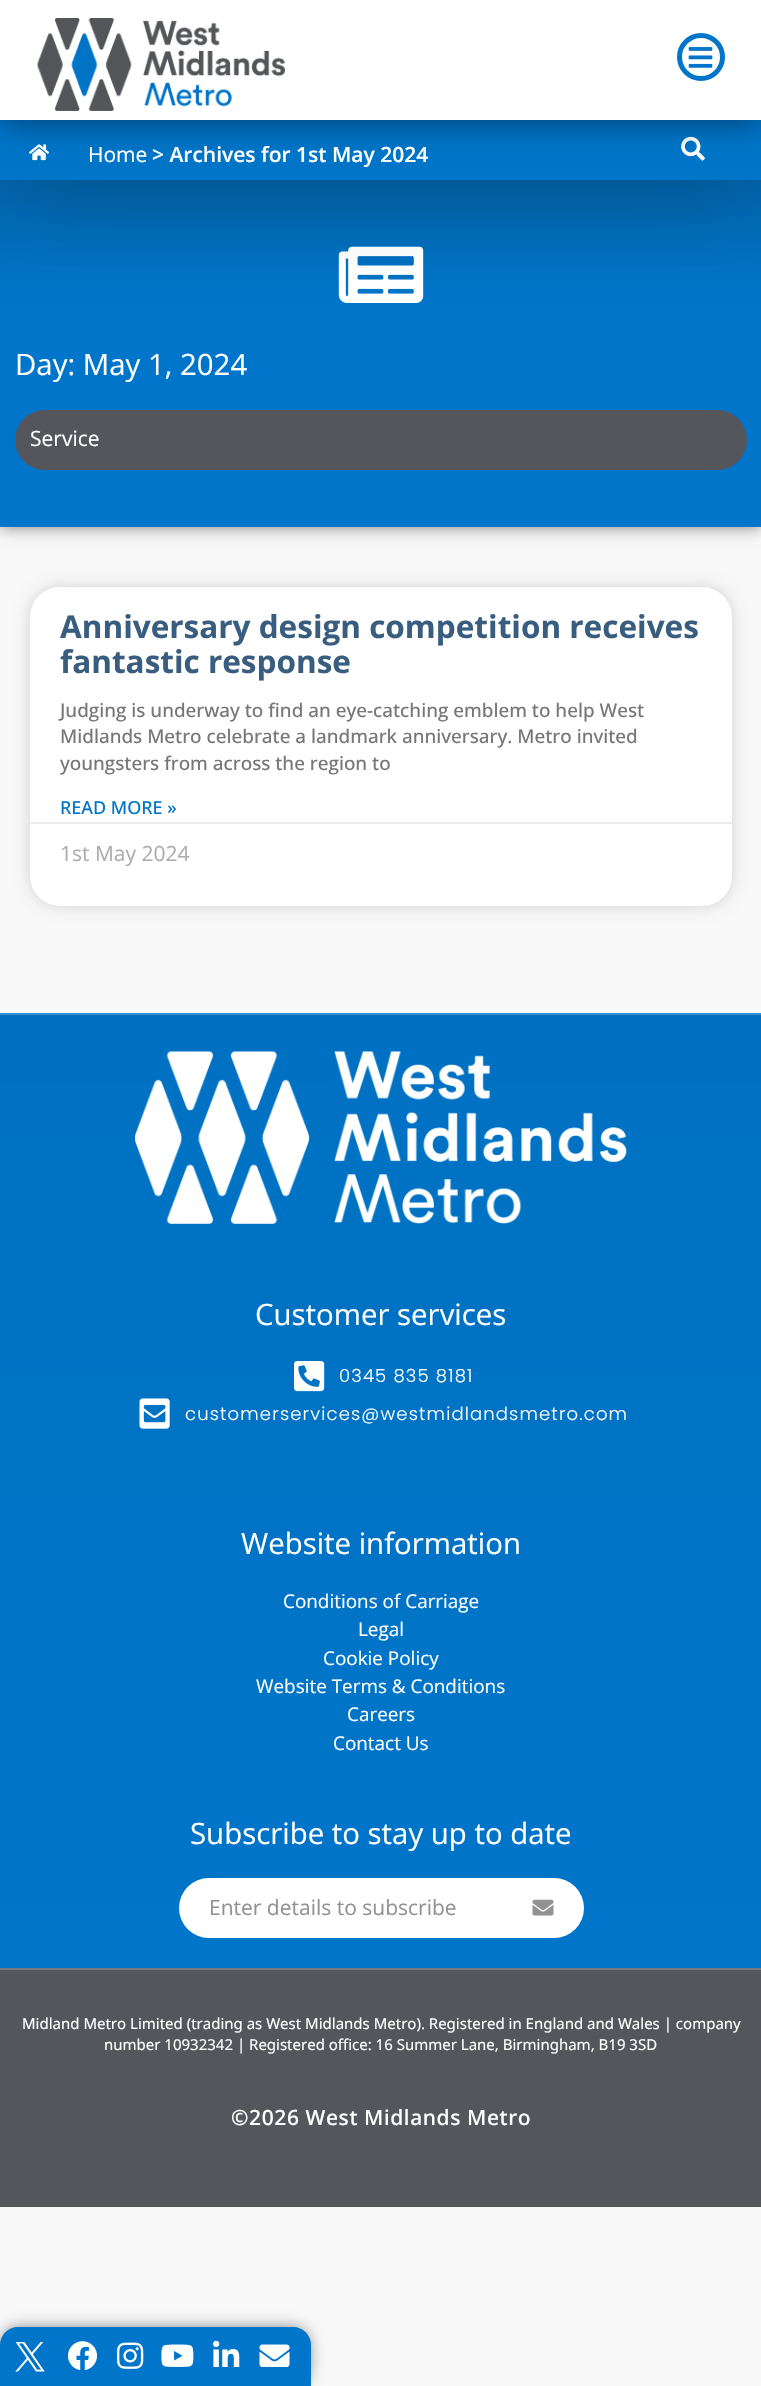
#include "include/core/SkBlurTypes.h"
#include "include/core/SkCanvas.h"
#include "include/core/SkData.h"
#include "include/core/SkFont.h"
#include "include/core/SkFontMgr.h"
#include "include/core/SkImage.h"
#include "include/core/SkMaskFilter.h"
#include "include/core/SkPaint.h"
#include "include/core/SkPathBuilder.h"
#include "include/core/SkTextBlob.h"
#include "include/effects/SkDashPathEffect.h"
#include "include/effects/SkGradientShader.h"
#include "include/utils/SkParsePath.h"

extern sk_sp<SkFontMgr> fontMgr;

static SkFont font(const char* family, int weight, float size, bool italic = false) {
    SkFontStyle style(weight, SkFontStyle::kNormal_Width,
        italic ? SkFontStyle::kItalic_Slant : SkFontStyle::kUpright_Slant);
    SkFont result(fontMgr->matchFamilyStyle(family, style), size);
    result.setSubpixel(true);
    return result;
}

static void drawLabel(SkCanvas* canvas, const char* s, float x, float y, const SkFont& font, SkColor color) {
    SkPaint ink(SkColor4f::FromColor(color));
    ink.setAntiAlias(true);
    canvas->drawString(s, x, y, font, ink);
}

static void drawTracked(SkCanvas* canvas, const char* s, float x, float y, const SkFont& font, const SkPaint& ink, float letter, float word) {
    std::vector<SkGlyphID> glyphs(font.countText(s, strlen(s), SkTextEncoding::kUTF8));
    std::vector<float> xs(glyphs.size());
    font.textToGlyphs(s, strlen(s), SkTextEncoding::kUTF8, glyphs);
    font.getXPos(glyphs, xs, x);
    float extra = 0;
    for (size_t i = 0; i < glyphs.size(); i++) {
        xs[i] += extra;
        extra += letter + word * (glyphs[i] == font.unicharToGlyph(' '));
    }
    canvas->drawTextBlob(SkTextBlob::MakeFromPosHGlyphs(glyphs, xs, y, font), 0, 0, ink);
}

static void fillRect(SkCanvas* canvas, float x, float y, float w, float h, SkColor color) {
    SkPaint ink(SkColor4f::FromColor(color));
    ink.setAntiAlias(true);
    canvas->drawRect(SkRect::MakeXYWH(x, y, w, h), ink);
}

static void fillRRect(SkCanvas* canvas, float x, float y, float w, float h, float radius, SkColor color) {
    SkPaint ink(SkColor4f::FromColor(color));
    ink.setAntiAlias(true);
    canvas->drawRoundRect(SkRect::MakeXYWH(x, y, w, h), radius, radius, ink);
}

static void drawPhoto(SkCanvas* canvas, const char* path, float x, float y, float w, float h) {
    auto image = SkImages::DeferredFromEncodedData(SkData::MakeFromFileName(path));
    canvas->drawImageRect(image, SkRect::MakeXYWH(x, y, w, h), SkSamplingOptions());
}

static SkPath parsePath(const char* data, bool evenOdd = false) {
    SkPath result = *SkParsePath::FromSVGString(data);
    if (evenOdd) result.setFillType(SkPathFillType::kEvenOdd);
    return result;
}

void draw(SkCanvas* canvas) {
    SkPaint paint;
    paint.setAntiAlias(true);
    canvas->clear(0xFFF8F8F8);
    paint.setColor(0x80000000);
    paint.setMaskFilter(SkMaskFilter::MakeBlur(kNormal_SkBlurStyle, 7.5f));
    canvas->drawRect(SkRect::MakeXYWH(0, 180, 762, 347), paint);
    paint.setMaskFilter(nullptr);
    {
        const SkColor colors[] = {0xFF0266AE, 0xFF0075C9};
        const float stops[] = {0, 0.35f};
        const SkPoint ends[] = {{381, 180}, {381, 527}};
        paint.setShader(SkGradientShader::MakeLinear(ends, colors, stops, 2, SkTileMode::kClamp));
        paint.setAlpha(255);
    }
    canvas->drawRect(SkRect::MakeXYWH(0, 180, 761, 347), paint);
    drawPhoto(canvas, "assets/img5.png", 338, 246, 86, 57);
    paint.setShader(nullptr);
    paint.setColor(0x80000000);
    paint.setMaskFilter(SkMaskFilter::MakeBlur(kNormal_SkBlurStyle, 48));
    canvas->drawRect(SkRect::MakeXYWH(12, 132, 738, 36), paint);
    paint.setMaskFilter(nullptr);
    fillRect(canvas, 0, 120, 761, 60, 0xFF0075C9);
    drawPhoto(canvas, "assets/img3.png", 29, 144, 21, 17);
    drawPhoto(canvas, "assets/img4.png", 681, 136, 24, 25);
    paint.setMaskFilter(SkMaskFilter::MakeBlur(kNormal_SkBlurStyle, 16.5f));
    canvas->drawRect(SkRect::MakeXYWH(0, 0, 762, 120), paint);
    paint.setMaskFilter(nullptr);
    fillRect(canvas, 0, 0, 761, 120, 0xFFFFFFFF);
    drawPhoto(canvas, "assets/img1.png", 37, 18, 248, 93);
    paint.setStroke(true);
    paint.setStrokeWidth(5);
    paint.setColor(0xFF0075C9);
    canvas->drawCircle(701, 57, 21.5f, paint);
    drawPhoto(canvas, "assets/img2.png", 688, 47, 25, 21);
    SkFont font1 = font("Open Sans", 400, 21);
    drawLabel(canvas, "Home", 88, 162, font1, 0xFFFFFFFF);
    SkFont font2 = font("Open Sans", 600, 21);
    drawLabel(canvas, "> Archives for 1st May 2024", 152, 162, font2, 0xFFFFFFFF);
    SkFont font3 = font("Open Sans", 400, 29.4f);
    drawLabel(canvas, "Day: May 1, 2024", 15, 375, font3, 0xFFFFFFFF);
    fillRRect(canvas, 15, 410, 732, 60, 30, 0xFF54565B);
    drawLabel(canvas, "Service", 30, 446, font1, 0xFFFFFFFF);
    paint.setStroke(false);
    paint.setColor(0x26000000);
    paint.setMaskFilter(SkMaskFilter::MakeBlur(kNormal_SkBlurStyle, 7.5f));
    canvas->drawRoundRect(SkRect::MakeXYWH(30, 587, 702, 319), 30, 30, paint);
    paint.setMaskFilter(nullptr);
    fillRRect(canvas, 30, 587, 702, 319, 30, 0xFFFFFFFF);
    SkFont font4 = font("Open Sans", 700, 31.5f);
    drawLabel(canvas, "Anniversary design competition receives", 60, 638, font4, 0xFF385D7F);
    drawLabel(canvas, "fantastic response", 60, 673, font4, 0xFF385D7F);
    SkFont font5 = font("Open Sans", 500, 18.9f);
    drawLabel(canvas, "Judging is underway to find an eye-catching emblem to help West", 60, 717, font5, 0xFF777777);
    drawLabel(canvas, "Midlands Metro celebrate a landmark anniversary. Metro invited", 60, 743, font5, 0xFF777777);
    drawLabel(canvas, "youngsters from across the region to", 60, 770, font5, 0xFF777777);
    SkFont font6 = font("Open Sans", 500, 18);
    drawLabel(canvas, "READ MORE »", 60, 814, font6, 0xFF0075C9);
    fillRect(canvas, 30, 822, 702, 2, 0xFFEAEAEA);
    drawLabel(canvas, "1st May 2024", 60, 861, font1, 0xFFADADAD);
    {
        const SkColor colors[] = {0xFF338DCE, 0xFF3391D4};
        const float stops[] = {0, 1};
        const SkPoint ends[] = {{381, 60}, {381, 1014}};
        paint.setShader(SkGradientShader::MakeLinear(ends, colors, stops, 2, SkTileMode::kClamp));
        paint.setAlpha(255);
    }
    canvas->drawRect(SkRect::MakeXYWH(0, 1013, 761, 1), paint);
    {
        const SkColor colors[] = {0xFF0071C2, 0xFF0075C9};
        const float stops[] = {0, 1};
        const SkPoint ends[] = {{381, 1014}, {381, 1968}};
        paint.setShader(SkGradientShader::MakeLinear(ends, colors, stops, 2, SkTileMode::kClamp));
        paint.setAlpha(255);
    }
    canvas->drawRect(SkRect::MakeXYWH(0, 1015, 761, 953), paint);
    {
        const SkColor colors[] = {0xFF338DCE, 0xFF3391D4};
        const float stops[] = {0, 1};
        const SkPoint ends[] = {{381, 1014}, {381, 1968}};
        paint.setShader(SkGradientShader::MakeLinear(ends, colors, stops, 2, SkTileMode::kClamp));
        paint.setAlpha(255);
    }
    canvas->drawRect(SkRect::MakeXYWH(0, 1014, 761, 1), paint);
    drawPhoto(canvas, "assets/img6.png", 135, 1051, 492, 173);
    drawLabel(canvas, "Customer services", 255, 1325, font3, 0xFFFFFFFF);
    drawPhoto(canvas, "assets/img7.png", 294, 1361, 31, 31);
    SkFont font7 = font("Poppins", 300, 18);
    paint.setShader(nullptr);
    paint.setColor(0xFFFFFFFF);
    drawTracked(canvas, "0345 835 8181", 339, 1382, font7, paint, 1.15f, 0);
    drawPhoto(canvas, "assets/img8.png", 139, 1398, 31, 31);
    drawTracked(canvas, "customerservices@westmidlandsmetro.com", 185, 1420, font7, paint, 1.15f, 0);
    drawLabel(canvas, "Website information", 241, 1554, font3, 0xFFFFFFFF);
    SkFont font8 = font("Open Sans", 400, 18.9f);
    drawLabel(canvas, "Conditions of Carriage", 283, 1608, font8, 0xFFFFFFFF);
    drawLabel(canvas, "Legal", 358, 1636, font8, 0xFFFFFFFF);
    drawLabel(canvas, "Cookie Policy", 323, 1665, font8, 0xFFFFFFFF);
    drawLabel(canvas, "Website Terms & Conditions", 256, 1693, font8, 0xFFFFFFFF);
    drawLabel(canvas, "Careers", 347, 1721, font8, 0xFFFFFFFF);
    drawLabel(canvas, "Contact Us", 333, 1750, font8, 0xFFFFFFFF);
    drawLabel(canvas, "Subscribe to stay up to date", 190, 1844, font3, 0xFFFFFFFF);
    fillRRect(canvas, 179, 1878, 405, 60, 30, 0xFFFFFFFF);
    drawLabel(canvas, "Enter details to subscribe", 209, 1915, font1, 0xFF939292);
    drawPhoto(canvas, "assets/img9.png", 532, 1899, 22, 17);
    fillRect(canvas, 0, 1970, 761, 237, 0xFF54565B);
    fillRect(canvas, 0, 1968, 761, 2, 0xFF76787C);
    SkFont font9 = font("Noto Sans", 400, 15);
    drawLabel(canvas, "Midland Metro Limited (trading as West Midlands Metro). Registered in England and Wales | company", 22, 2029, font9, 0xFFFFFFFF);
    drawLabel(canvas, "number 10932342 | Registered office: 16 Summer Lane, Birmingham, B19 3SD", 104, 2050, font9, 0xFFFFFFFF);
    SkFont font10 = font("Noto Sans", 500, 21);
    drawTracked(canvas, "©2026 West Midlands Metro", 231, 2125, font10, paint, 0.6f, 0);
    paint.setColor(0x80000000);
    paint.setMaskFilter(SkMaskFilter::MakeBlur(kNormal_SkBlurStyle, 7.5f));
    canvas->drawRoundRect(SkRect::MakeXYWH(2, 2328, 307, 57), 17, 17, paint);
    paint.setMaskFilter(nullptr);
    paint.setColor(0xFF0075C9);
    canvas->drawPath(parsePath("M18 2327H293C303 2327 311 2335 311 2345V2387H0V2345C0 2335 8 2327 18 2327Z"), paint);
    drawPhoto(canvas, "assets/img10.png", 15, 2342, 30, 30);
    drawPhoto(canvas, "assets/img11.png", 68, 2341, 29, 29);
    drawPhoto(canvas, "assets/img12.png", 117, 2342, 27, 27);
    drawPhoto(canvas, "assets/img13.png", 161, 2344, 33, 23);
    drawPhoto(canvas, "assets/img14.png", 213, 2340, 27, 27);
    drawPhoto(canvas, "assets/img15.png", 259, 2344, 31, 23);
}
